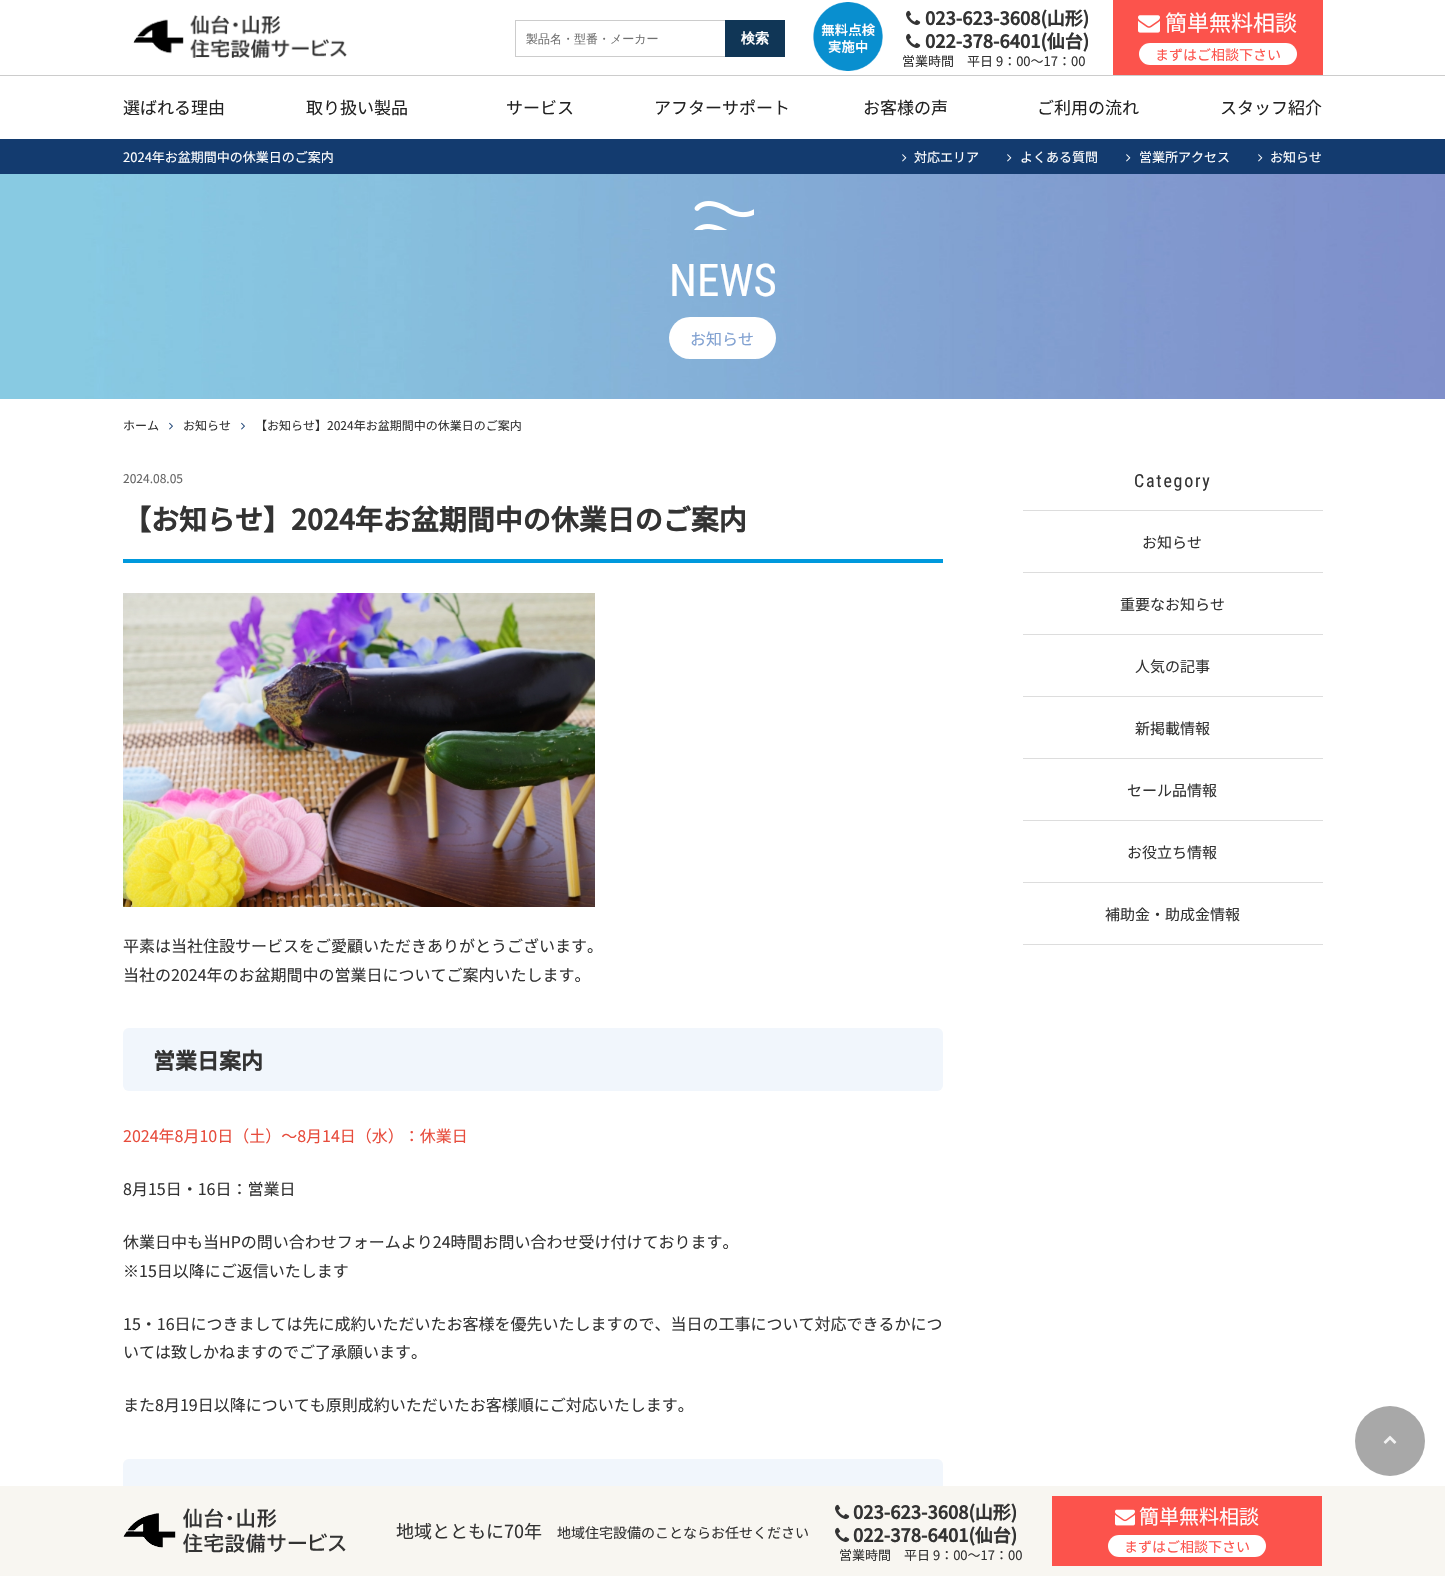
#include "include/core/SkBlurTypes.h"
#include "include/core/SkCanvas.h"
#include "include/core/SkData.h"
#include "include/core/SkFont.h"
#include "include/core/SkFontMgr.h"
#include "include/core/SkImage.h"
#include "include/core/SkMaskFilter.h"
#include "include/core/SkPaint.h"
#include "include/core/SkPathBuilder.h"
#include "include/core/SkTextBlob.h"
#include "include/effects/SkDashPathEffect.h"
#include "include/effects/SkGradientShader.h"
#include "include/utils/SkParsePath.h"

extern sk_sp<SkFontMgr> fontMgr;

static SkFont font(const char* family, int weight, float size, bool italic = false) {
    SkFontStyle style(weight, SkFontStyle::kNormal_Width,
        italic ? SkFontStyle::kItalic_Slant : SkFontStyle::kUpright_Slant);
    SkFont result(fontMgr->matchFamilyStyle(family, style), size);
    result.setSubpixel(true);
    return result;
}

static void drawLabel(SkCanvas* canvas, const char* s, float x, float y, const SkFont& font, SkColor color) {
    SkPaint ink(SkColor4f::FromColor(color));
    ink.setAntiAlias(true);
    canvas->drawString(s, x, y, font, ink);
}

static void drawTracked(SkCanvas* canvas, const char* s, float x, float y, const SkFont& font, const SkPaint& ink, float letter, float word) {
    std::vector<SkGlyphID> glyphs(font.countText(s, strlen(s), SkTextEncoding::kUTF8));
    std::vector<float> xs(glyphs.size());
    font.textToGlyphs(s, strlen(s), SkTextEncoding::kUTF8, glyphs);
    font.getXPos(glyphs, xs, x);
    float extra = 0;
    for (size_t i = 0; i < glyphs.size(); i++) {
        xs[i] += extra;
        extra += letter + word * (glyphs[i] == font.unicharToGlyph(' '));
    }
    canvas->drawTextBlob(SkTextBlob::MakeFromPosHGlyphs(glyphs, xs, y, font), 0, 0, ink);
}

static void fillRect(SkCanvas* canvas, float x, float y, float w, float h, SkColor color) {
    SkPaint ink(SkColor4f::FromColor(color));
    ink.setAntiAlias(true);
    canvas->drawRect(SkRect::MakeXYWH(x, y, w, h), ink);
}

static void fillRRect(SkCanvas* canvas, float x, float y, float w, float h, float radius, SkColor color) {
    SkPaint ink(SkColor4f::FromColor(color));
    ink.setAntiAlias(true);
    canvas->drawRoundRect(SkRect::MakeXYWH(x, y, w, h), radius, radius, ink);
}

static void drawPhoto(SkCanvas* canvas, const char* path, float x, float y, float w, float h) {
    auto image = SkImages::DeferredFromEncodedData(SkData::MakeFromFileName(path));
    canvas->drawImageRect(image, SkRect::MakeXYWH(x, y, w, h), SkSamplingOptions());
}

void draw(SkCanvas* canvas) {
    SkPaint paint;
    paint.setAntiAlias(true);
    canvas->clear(0xFFFFFFFF);
    drawPhoto(canvas, "assets/img1.png", 133, 15, 214, 43);
    fillRect(canvas, 515, 20, 210, 1, 0xFFCCCCCC);
    fillRect(canvas, 515, 56, 210, 1, 0xFFCCCCCC);
    fillRect(canvas, 515, 20, 1, 37, 0xFFCCCCCC);
    SkFont font1 = font("WenQuanYi Zen Hei", 500, 12);
    drawLabel(canvas, "製品名・型番・メーカー", 526, 43, font1, 0xFF707070);
    fillRect(canvas, 725, 20, 60, 37, 0xFF103656);
    SkFont font2 = font("WenQuanYi Zen Hei", 700, 14);
    drawLabel(canvas, "検索", 741, 43, font2, 0xFFFFFFFF);
    drawPhoto(canvas, "assets/img2.png", 813, 2, 70, 69);
    drawPhoto(canvas, "assets/img3.png", 906, 10, 15, 15);
    SkFont font3 = font("Noto Sans JP", 700, 18);
    drawLabel(canvas, "023-623-3608(山形)", 925, 25, font3, 0xFF333333);
    drawPhoto(canvas, "assets/img3.png", 906, 33, 15, 15);
    drawLabel(canvas, "022-378-6401(仙台)", 925, 48, font3, 0xFF333333);
    SkFont font4 = font("Noto Sans JP", 400, 13);
    drawLabel(canvas, "営業時間　平日 9：00～17：00", 902, 66, font4, 0xFF333333);
    fillRect(canvas, 1113, 0, 210, 75, 0xFFFC534C);
    drawPhoto(canvas, "assets/img4.png", 1138, 15, 22, 18);
    SkFont font5 = font("Noto Sans JP", 400, 22);
    drawLabel(canvas, "簡単無料相談", 1165, 31, font5, 0xFFFFFFFF);
    fillRRect(canvas, 1139, 43, 158, 22, 11, 0xFFFFFFFF);
    SkFont font6 = font("Noto Sans JP", 400, 14);
    drawLabel(canvas, "まずはご相談下さい", 1155, 60, font6, 0xFFFC534C);
    fillRect(canvas, 0, 75, 1445, 1, 0xFFCCCCCC);
    fillRect(canvas, 0, 139, 1445, 35, 0xFF133B6F);
    SkFont font7 = font("Noto Sans JP", 400, 17);
    drawLabel(canvas, "選ばれる理由", 123, 114, font7, 0xFF222222);
    drawLabel(canvas, "取り扱い製品", 306, 114, font7, 0xFF222222);
    drawLabel(canvas, "サービス", 506, 114, font7, 0xFF222222);
    drawLabel(canvas, "アフターサポート", 654, 114, font7, 0xFF222222);
    drawLabel(canvas, "お客様の声", 863, 114, font7, 0xFF222222);
    drawLabel(canvas, "ご利用の流れ", 1037, 114, font7, 0xFF222222);
    drawLabel(canvas, "スタッフ紹介", 1220, 114, font7, 0xFF222222);
    drawLabel(canvas, "2024年お盆期間中の休業日のご案内", 123, 162, font4, 0xFFFFFFFF);
    drawPhoto(canvas, "assets/img5.png", 902, 154, 5, 8);
    drawLabel(canvas, "対応エリア", 914, 162, font4, 0xFFFFFFFF);
    drawPhoto(canvas, "assets/img5.png", 1007, 154, 5, 8);
    drawLabel(canvas, "よくある質問", 1020, 162, font4, 0xFFFFFFFF);
    drawPhoto(canvas, "assets/img5.png", 1126, 154, 5, 8);
    drawLabel(canvas, "営業所アクセス", 1139, 162, font4, 0xFFFFFFFF);
    drawPhoto(canvas, "assets/img5.png", 1258, 154, 5, 8);
    drawLabel(canvas, "お知らせ", 1270, 162, font4, 0xFFFFFFFF);
    drawPhoto(canvas, "assets/img6.png", 0, 174, 1445, 225);
    drawPhoto(canvas, "assets/img7.png", 694, 201, 60, 29);
    SkFont font8 = font("Roboto Condensed", 400, 45);
    drawLabel(canvas, "NEWS", 669, 296, font8, 0xFFFFFFFF);
    fillRRect(canvas, 669, 317, 107, 42, 21, 0xFFFFFFFF);
    SkFont font9 = font("Noto Sans JP", 400, 16);
    drawLabel(canvas, "お知らせ", 690, 345, font9, 0xFF81A1D1);
    SkFont font10 = font("Noto Sans JP", 400, 12);
    drawLabel(canvas, "ホーム", 123, 430, font10, 0xFF333333);
    drawPhoto(canvas, "assets/img8.png", 169, 422, 4, 8);
    drawLabel(canvas, "お知らせ", 183, 430, font10, 0xFF333333);
    drawPhoto(canvas, "assets/img8.png", 241, 422, 4, 8);
    drawLabel(canvas, "【お知らせ】2024年お盆期間中の休業日のご案内", 255, 430, font10, 0xFF333333);
    drawLabel(canvas, "2024.08.05", 123, 483, font10, 0xFF666666);
    fillRect(canvas, 123, 559, 820, 4, 0xFF0099DD);
    SkFont font11 = font("Noto Sans JP", 700, 28);
    drawLabel(canvas, "【お知らせ】2024年お盆期間中の休業日のご案内", 123, 530, font11, 0xFF333333);
    drawPhoto(canvas, "assets/img9.png", 123, 593, 472, 314);
    drawLabel(canvas, "平素は当社住設サービスをご愛顧いただきありがとうございます。", 123, 952, font9, 0xFF333333);
    drawLabel(canvas, "当社の2024年のお盆期間中の営業日についてご案内いたします。", 123, 981, font9, 0xFF333333);
    fillRRect(canvas, 123, 1028, 820, 63, 6, 0xFFF1F6FC);
    SkFont font12 = font("Noto Sans JP", 700, 22);
    drawLabel(canvas, "営業日案内", 153, 1069, font12, 0xFF333333);
    drawLabel(canvas, "2024年8月10日（土）～8月14日（水）：休業日", 123, 1142, font9, 0xFFE74C3C);
    drawLabel(canvas, "8月15日・16日：営業日", 123, 1195, font9, 0xFF333333);
    drawLabel(canvas, "休業日中も当HPの問い合わせフォームより24時間お問い合わせ受け付けております。", 123, 1248, font9, 0xFF333333);
    drawLabel(canvas, "※15日以降にご返信いたします", 123, 1277, font9, 0xFF333333);
    drawLabel(canvas, "15・16日につきましては先に成約いただいたお客様を優先いたしますので、当日の工事について対応できるかにつ", 123, 1330, font9, 0xFF333333);
    drawLabel(canvas, "いては致しかねますのでご了承願います。", 123, 1358, font9, 0xFF333333);
    drawLabel(canvas, "また8月19日以降についても原則成約いただいたお客様順にご対応いたします。", 123, 1411, font9, 0xFF333333);
    fillRRect(canvas, 123, 1459, 820, 63, 6, 0xFFF1F6FC);
    SkFont font13 = font("Roboto Condensed", 400, 18);
    paint.setColor(0xFF333333);
    drawTracked(canvas, "Category", 1134, 487, font13, paint, 1.75f, 0);
    fillRect(canvas, 1023, 510, 300, 1, 0xFFDDDDDD);
    fillRect(canvas, 1023, 572, 300, 1, 0xFFDDDDDD);
    SkFont font14 = font("Noto Sans JP", 400, 15);
    drawLabel(canvas, "お知らせ", 1142, 548, font14, 0xFF333333);
    fillRect(canvas, 1023, 634, 300, 1, 0xFFDDDDDD);
    drawLabel(canvas, "重要なお知らせ", 1120, 610, font14, 0xFF333333);
    fillRect(canvas, 1023, 696, 300, 1, 0xFFDDDDDD);
    drawLabel(canvas, "人気の記事", 1135, 672, font14, 0xFF333333);
    fillRect(canvas, 1023, 758, 300, 1, 0xFFDDDDDD);
    drawLabel(canvas, "新掲載情報", 1135, 734, font14, 0xFF333333);
    fillRect(canvas, 1023, 820, 300, 1, 0xFFDDDDDD);
    drawLabel(canvas, "セール品情報", 1127, 796, font14, 0xFF333333);
    fillRect(canvas, 1023, 882, 300, 1, 0xFFDDDDDD);
    drawLabel(canvas, "お役立ち情報", 1127, 858, font14, 0xFF333333);
    fillRect(canvas, 1023, 944, 300, 1, 0xFFDDDDDD);
    drawLabel(canvas, "補助金・助成金情報", 1105, 920, font14, 0xFF333333);
    paint.setColor(0xFFA8A8A8);
    canvas->drawCircle(1390, 1441, 35, paint);
    drawPhoto(canvas, "assets/img10.png", 1383, 1435, 14, 9);
    fillRect(canvas, 0, 1486, 1445, 90, 0xFFF8F6F1);
    drawPhoto(canvas, "assets/img11.png", 123, 1508, 223, 45);
    SkFont font15 = font("Noto Sans JP", 400, 18);
    drawLabel(canvas, "地域とともに70年", 396, 1538, font15, 0xFF333333);
    drawLabel(canvas, "地域住宅設備のことならお任せください", 557, 1538, font6, 0xFF333333);
    drawPhoto(canvas, "assets/img12.png", 835, 1504, 15, 15);
    drawLabel(canvas, "023-623-3608(山形)", 853, 1519, font3, 0xFF333333);
    drawPhoto(canvas, "assets/img12.png", 835, 1527, 15, 15);
    drawLabel(canvas, "022-378-6401(仙台)", 853, 1542, font3, 0xFF333333);
    drawLabel(canvas, "営業時間　平日 9：00～17：00", 839, 1560, font4, 0xFF333333);
    fillRect(canvas, 1052, 1496, 270, 70, 0xFFFC534C);
    drawPhoto(canvas, "assets/img13.png", 1115, 1509, 20, 17);
    SkFont font16 = font("Noto Sans JP", 400, 20);
    drawLabel(canvas, "簡単無料相談", 1139, 1524, font16, 0xFFFFFFFF);
    fillRRect(canvas, 1108, 1535, 158, 22, 11, 0xFFFFFFFF);
    drawLabel(canvas, "まずはご相談下さい", 1124, 1552, font6, 0xFFFC534C);
}
